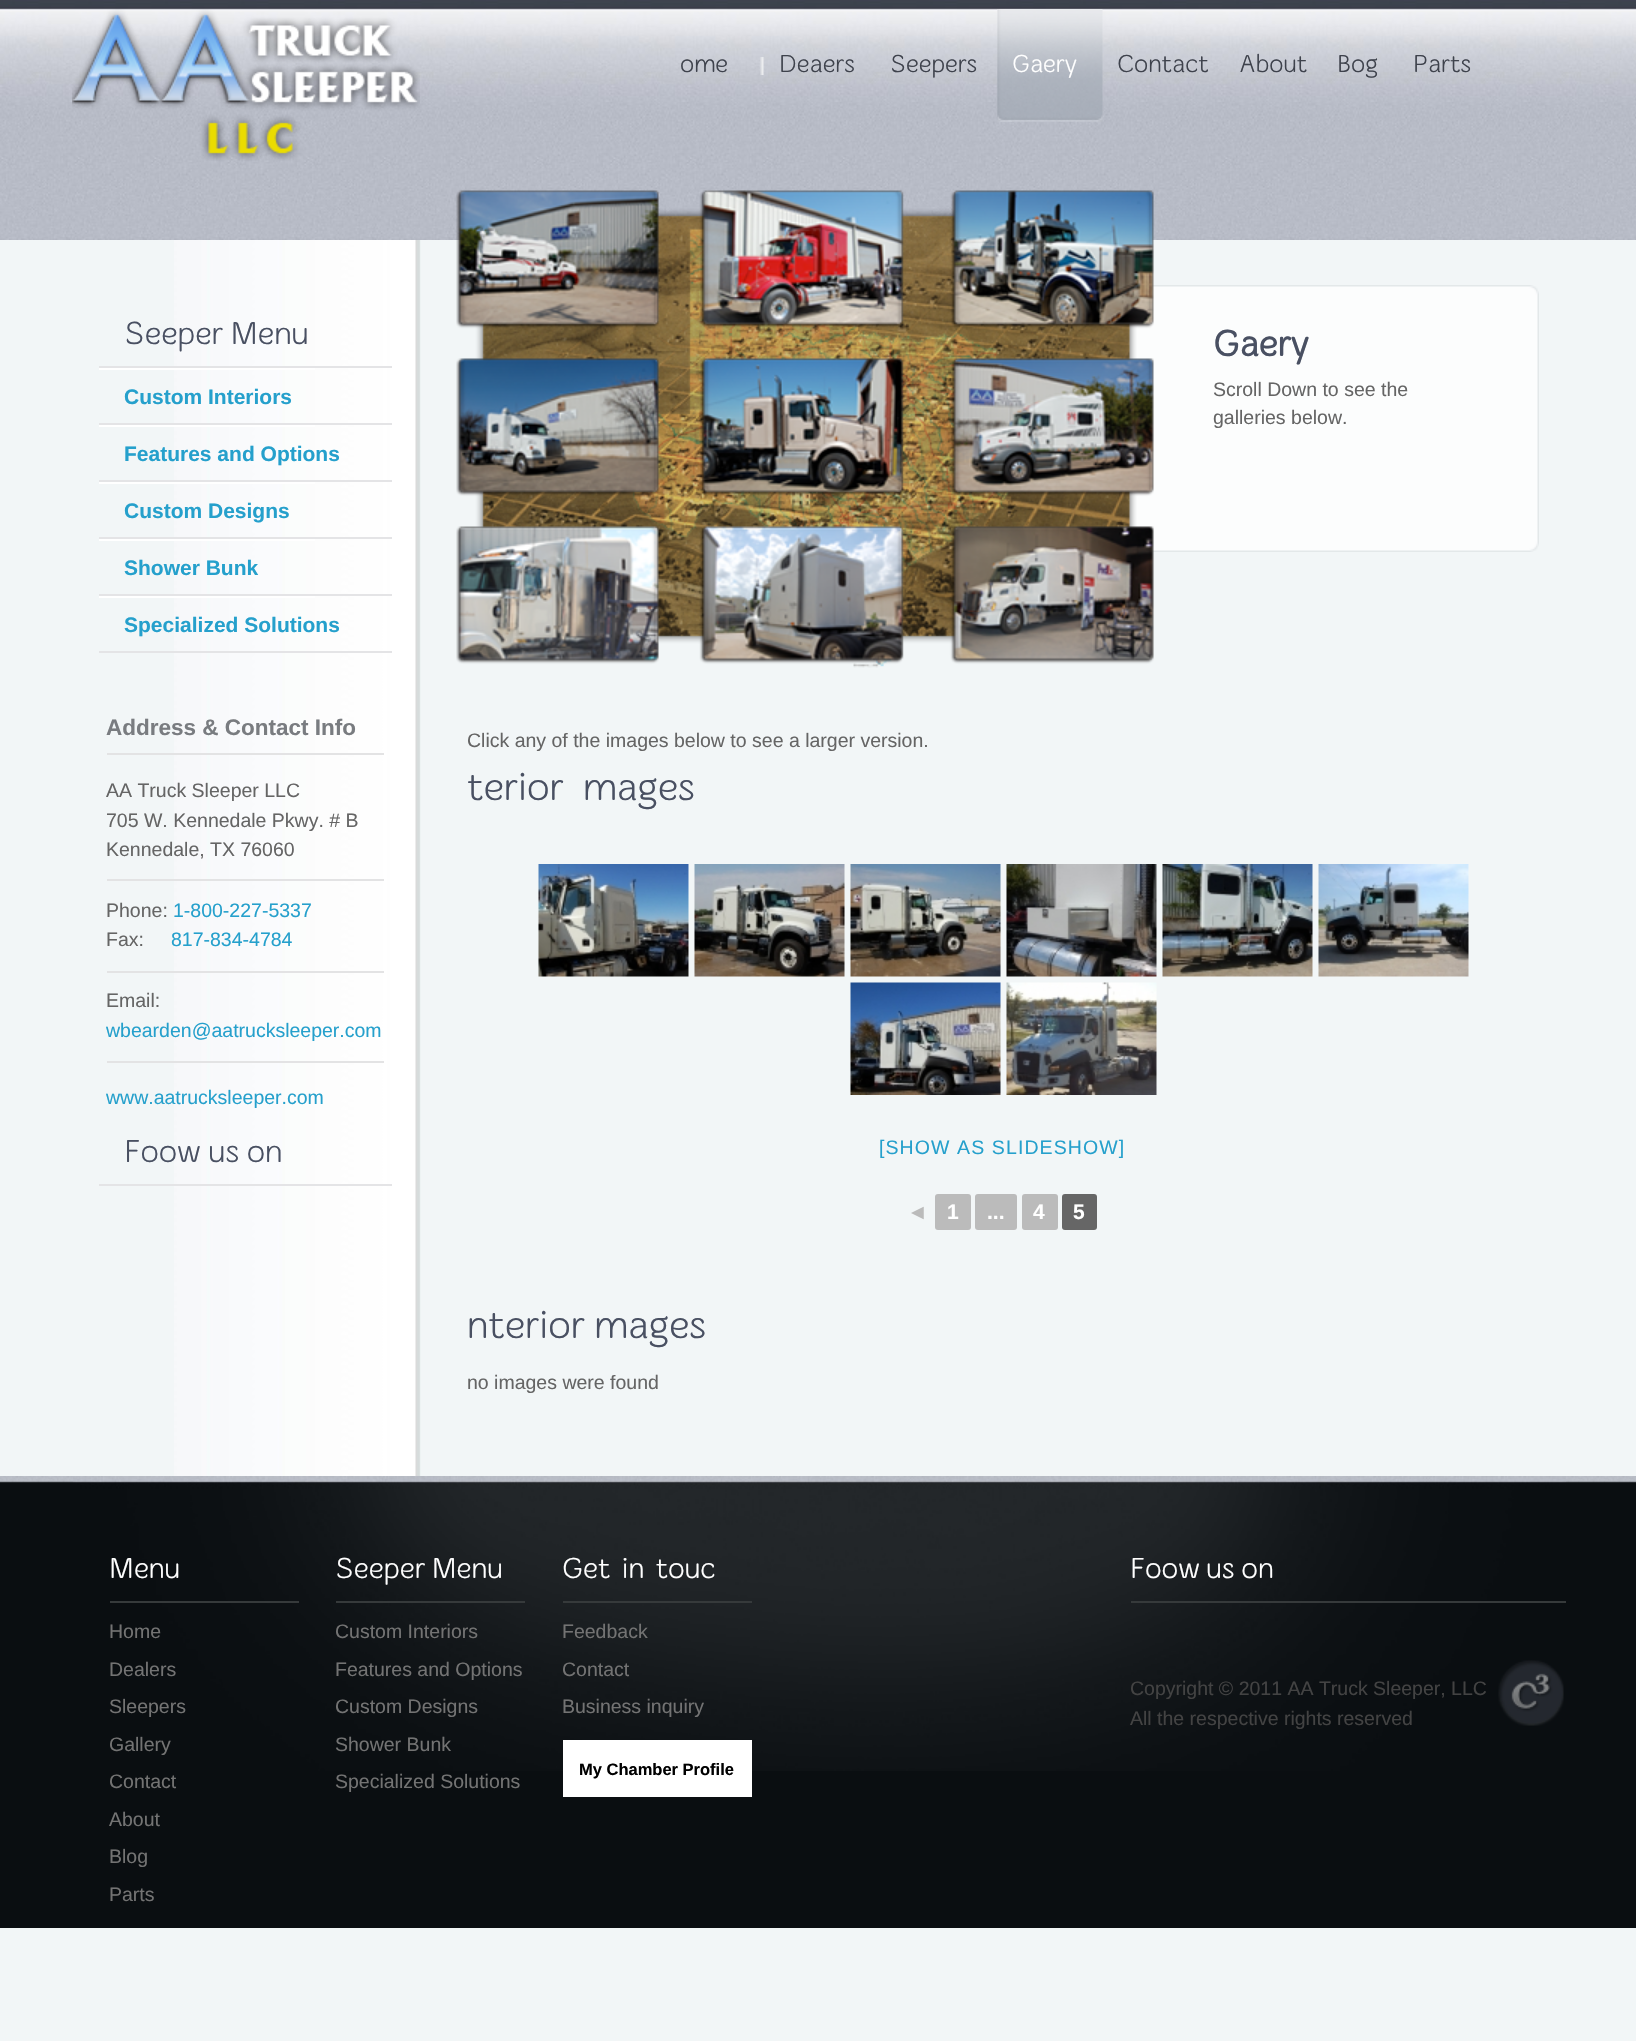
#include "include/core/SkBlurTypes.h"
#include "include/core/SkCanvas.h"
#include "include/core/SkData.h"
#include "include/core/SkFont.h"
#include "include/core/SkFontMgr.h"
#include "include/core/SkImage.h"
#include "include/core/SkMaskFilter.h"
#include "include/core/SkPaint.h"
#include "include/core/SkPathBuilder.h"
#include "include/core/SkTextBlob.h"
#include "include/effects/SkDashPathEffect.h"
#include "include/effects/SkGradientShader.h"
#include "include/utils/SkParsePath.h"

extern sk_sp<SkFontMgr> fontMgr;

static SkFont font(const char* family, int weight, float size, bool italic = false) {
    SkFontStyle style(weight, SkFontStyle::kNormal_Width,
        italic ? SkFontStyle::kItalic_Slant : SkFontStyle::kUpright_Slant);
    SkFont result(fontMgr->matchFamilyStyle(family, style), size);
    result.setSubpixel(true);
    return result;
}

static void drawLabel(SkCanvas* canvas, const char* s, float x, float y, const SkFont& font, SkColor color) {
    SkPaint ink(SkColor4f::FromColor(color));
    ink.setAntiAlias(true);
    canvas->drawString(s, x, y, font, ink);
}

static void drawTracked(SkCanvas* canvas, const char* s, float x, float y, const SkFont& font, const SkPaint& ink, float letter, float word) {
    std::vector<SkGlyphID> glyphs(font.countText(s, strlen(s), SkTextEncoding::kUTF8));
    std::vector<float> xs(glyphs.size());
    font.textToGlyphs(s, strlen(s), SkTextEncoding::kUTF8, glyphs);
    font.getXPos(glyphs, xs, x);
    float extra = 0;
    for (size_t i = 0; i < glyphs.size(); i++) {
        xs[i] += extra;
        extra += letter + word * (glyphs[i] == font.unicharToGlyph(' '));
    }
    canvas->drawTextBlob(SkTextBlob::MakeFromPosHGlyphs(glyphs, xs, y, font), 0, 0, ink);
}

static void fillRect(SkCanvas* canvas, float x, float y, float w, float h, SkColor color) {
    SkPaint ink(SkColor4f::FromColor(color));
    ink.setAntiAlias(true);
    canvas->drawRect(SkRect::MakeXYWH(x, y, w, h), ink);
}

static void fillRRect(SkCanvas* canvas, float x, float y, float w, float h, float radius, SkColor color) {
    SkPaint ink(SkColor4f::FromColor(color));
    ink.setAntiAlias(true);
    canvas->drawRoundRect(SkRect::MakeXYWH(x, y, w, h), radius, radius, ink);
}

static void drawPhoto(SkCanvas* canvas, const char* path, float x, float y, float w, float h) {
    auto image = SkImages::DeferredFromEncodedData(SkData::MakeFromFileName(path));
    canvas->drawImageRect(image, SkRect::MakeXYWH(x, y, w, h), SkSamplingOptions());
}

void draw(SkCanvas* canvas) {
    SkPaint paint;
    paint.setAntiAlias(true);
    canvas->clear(0xFFF2F6F7);
    drawPhoto(canvas, "assets/img1.png", 0, 0, 1636, 240);
    drawPhoto(canvas, "assets/img2.png", 72, 9, 348, 152);
    SkFont font1 = font("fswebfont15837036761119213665", 400, 25.5f);
    drawLabel(canvas, "Home", 680, 72, font1, 0xFF3E424C);
    drawPhoto(canvas, "assets/img3.png", 760, 57, 4, 18);
    drawLabel(canvas, "Dealers", 779, 72, font1, 0xFF3E424C);
    drawLabel(canvas, "Sleepers", 890, 72, font1, 0xFF3E424C);
    drawPhoto(canvas, "assets/img4.png", 997, 9, 106, 113);
    drawPhoto(canvas, "assets/img5.png", 997, 9, 15, 113);
    drawLabel(canvas, "Gallery", 1012, 72, font1, 0xFFFFFFFF);
    drawLabel(canvas, "Contact", 1117, 72, font1, 0xFF3E424C);
    drawLabel(canvas, "About", 1239, 72, font1, 0xFF3E424C);
    drawLabel(canvas, "Blog", 1337, 72, font1, 0xFF3E424C);
    drawLabel(canvas, "Parts", 1413, 72, font1, 0xFF3E424C);
    drawPhoto(canvas, "assets/img6.png", 174, 240, 247, 1236);
    fillRect(canvas, 99, 366, 293, 2, 0xFFE4E4E6);
    SkFont font2 = font("fswebfont15837036761119213665", 400, 33);
    paint.setColor(0xFF495062);
    drawTracked(canvas, "Sleeper Menu", 124, 344, font2, paint, 0, -2);
    fillRect(canvas, 99, 368, 216, 2, 0xFFFFFFFF);
    fillRect(canvas, 99, 423, 293, 2, 0xFFE4E4E6);
    SkFont font3 = font("Liberation Sans", 700, 21);
    drawLabel(canvas, "Custom Interiors", 124, 404, font3, 0xFF25A0CC);
    fillRect(canvas, 99, 425, 216, 2, 0xFFFFFFFF);
    fillRect(canvas, 99, 480, 293, 2, 0xFFE4E4E6);
    drawLabel(canvas, "Features and Options", 124, 461, font3, 0xFF25A0CC);
    fillRect(canvas, 99, 482, 216, 2, 0xFFFFFFFF);
    fillRect(canvas, 99, 537, 293, 2, 0xFFE4E4E6);
    drawLabel(canvas, "Custom Designs", 124, 518, font3, 0xFF25A0CC);
    fillRect(canvas, 99, 539, 216, 2, 0xFFFFFFFF);
    fillRect(canvas, 99, 594, 293, 2, 0xFFE4E4E6);
    drawLabel(canvas, "Shower Bunk", 124, 575, font3, 0xFF25A0CC);
    fillRect(canvas, 99, 596, 216, 2, 0xFFFFFFFF);
    fillRect(canvas, 99, 651, 293, 2, 0xFFE4E4E6);
    drawLabel(canvas, "Specialized Solutions", 124, 632, font3, 0xFF25A0CC);
    fillRect(canvas, 107, 753, 277, 2, 0xFFE3E3E4);
    SkFont font4 = font("Liberation Sans", 700, 22.5f);
    drawLabel(canvas, "Address & Contact Info", 106, 735, font4, 0xFF797C80);
    fillRect(canvas, 107, 879, 277, 2, 0xFFE3E3E4);
    SkFont font5 = font("Liberation Sans", 400, 19.5f);
    drawLabel(canvas, "AA Truck Sleeper LLC", 106, 797, font5, 0xFF656565);
    drawLabel(canvas, "705 W. Kennedale Pkwy. # B", 106, 827, font5, 0xFF656565);
    drawLabel(canvas, "Kennedale, TX 76060", 106, 856, font5, 0xFF656565);
    fillRect(canvas, 107, 971, 277, 2, 0xFFE3E3E4);
    drawLabel(canvas, "Phone:", 106, 917, font5, 0xFF656565);
    drawLabel(canvas, "1-800-227-5337", 173, 917, font5, 0xFF25A0CC);
    drawLabel(canvas, "Fax:", 106, 946, font5, 0xFF656565);
    drawLabel(canvas, "817-834-4784", 171, 946, font5, 0xFF25A0CC);
    fillRect(canvas, 107, 1061, 277, 2, 0xFFE3E3E4);
    drawLabel(canvas, "Email:", 106, 1007, font5, 0xFF656565);
    drawLabel(canvas, "wbearden@aatrucksleeper.com", 106, 1037, font5, 0xFF25A0CC);
    drawLabel(canvas, "www.aatrucksleeper.com", 106, 1104, font5, 0xFF25A0CC);
    fillRect(canvas, 99, 1184, 293, 2, 0xFFE4E4E6);
    drawTracked(canvas, "Follow us on:", 124, 1162, font2, paint, 0, -2);
    drawPhoto(canvas, "assets/img7.png", 1129, 285, 410, 267);
    drawPhoto(canvas, "assets/img8.png", 456, 190, 698, 478);
    SkFont font6 = font("fswebfont15837036761119213665", 700, 37.5f);
    drawLabel(canvas, "Gallery", 1213, 356, font6, 0xFF495062);
    drawLabel(canvas, "Scroll Down to see the", 1213, 396, font5, 0xFF656565);
    drawLabel(canvas, "galleries below.", 1213, 424, font5, 0xFF656565);
    drawLabel(canvas, "Click any of the images below to see a larger version.", 467, 747, font5, 0xFF656565);
    SkFont font7 = font("fswebfont15837036761119213665", 400, 40.5f);
    drawTracked(canvas, "Exterior Images", 467, 800, font7, paint, 0, 8);
    drawPhoto(canvas, "assets/img9.png", 538, 864, 151, 113);
    drawPhoto(canvas, "assets/img10.png", 694, 864, 151, 113);
    drawPhoto(canvas, "assets/img11.png", 850, 864, 151, 113);
    drawPhoto(canvas, "assets/img12.png", 1006, 864, 151, 113);
    drawPhoto(canvas, "assets/img13.png", 1162, 864, 151, 113);
    drawPhoto(canvas, "assets/img14.png", 1318, 864, 151, 113);
    drawPhoto(canvas, "assets/img15.png", 850, 982, 151, 113);
    drawPhoto(canvas, "assets/img16.png", 1006, 982, 151, 113);
    paint.setColor(0xFF25A0CC);
    drawTracked(canvas, "[SHOW AS SLIDESHOW]", 879, 1154, font5, paint, 1.1f, 0);
    drawLabel(canvas, "◄", 907, 1219, font3, 0xFFBBBBBB);
    fillRRect(canvas, 935, 1194, 36, 36, 3, 0xFFBBBBBB);
    drawLabel(canvas, "1", 947, 1219, font3, 0xFFFFFFFF);
    fillRRect(canvas, 975, 1194, 42, 36, 3, 0xFFBBBBBB);
    drawLabel(canvas, "...", 987, 1219, font3, 0xFFFFFFFF);
    fillRRect(canvas, 1022, 1194, 36, 36, 3, 0xFFBBBBBB);
    drawLabel(canvas, "4", 1033, 1219, font3, 0xFFFFFFFF);
    fillRRect(canvas, 1062, 1194, 35, 36, 3, 0xFF666666);
    drawLabel(canvas, "5", 1073, 1219, font3, 0xFFFFFFFF);
    paint.setColor(0xFF495062);
    drawTracked(canvas, "Interior Images", 467, 1338, font7, paint, 0, -2);
    drawLabel(canvas, "no images were found", 467, 1389, font5, 0xFF656565);
    fillRect(canvas, 0, 1483, 1636, 445, 0xFF0A0E11);
    drawPhoto(canvas, "assets/img17.png", 0, 1476, 1636, 7);
    drawPhoto(canvas, "assets/img18.png", 73, 1476, 1493, 295);
    fillRect(canvas, 110, 1601, 189, 2, 0xFF363A3B);
    SkFont font8 = font("fswebfont15837036761119213665", 400, 30);
    drawLabel(canvas, "Menu", 109, 1578, font8, 0xFFFFFFFF);
    drawLabel(canvas, "Home", 109, 1638, font5, 0xFF737373);
    drawLabel(canvas, "Dealers", 109, 1676, font5, 0xFF737373);
    drawLabel(canvas, "Sleepers", 109, 1713, font5, 0xFF737373);
    drawLabel(canvas, "Gallery", 109, 1751, font5, 0xFF737373);
    drawLabel(canvas, "Contact", 109, 1788, font5, 0xFF737373);
    drawLabel(canvas, "About", 109, 1826, font5, 0xFF737373);
    drawLabel(canvas, "Blog", 109, 1863, font5, 0xFF737373);
    drawLabel(canvas, "Parts", 109, 1901, font5, 0xFF737373);
    fillRect(canvas, 336, 1601, 189, 2, 0xFF363A3B);
    paint.setColor(0xFFFFFFFF);
    drawTracked(canvas, "Sleeper Menu", 335, 1578, font8, paint, 0, -2);
    drawLabel(canvas, "Custom Interiors", 335, 1638, font5, 0xFF737373);
    drawLabel(canvas, "Features and Options", 335, 1676, font5, 0xFF737373);
    drawLabel(canvas, "Custom Designs", 335, 1713, font5, 0xFF737373);
    drawLabel(canvas, "Shower Bunk", 335, 1751, font5, 0xFF737373);
    drawLabel(canvas, "Specialized Solutions", 335, 1788, font5, 0xFF737373);
    fillRect(canvas, 563, 1601, 189, 2, 0xFF363A3B);
    drawTracked(canvas, "Get in touch", 562, 1578, font8, paint, 0, 3);
    drawLabel(canvas, "Feedback", 562, 1638, font5, 0xFF737373);
    drawLabel(canvas, "Contact", 562, 1676, font5, 0xFF737373);
    drawLabel(canvas, "Business inquiry", 562, 1713, font5, 0xFF737373);
    fillRect(canvas, 563, 1740, 189, 57, 0xFFFFFFFF);
    SkFont font9 = font("Liberation Sans", 700, 16.5f);
    drawLabel(canvas, "My Chamber Profile", 579, 1775, font9, 0xFF000000);
    fillRect(canvas, 1131, 1601, 435, 2, 0xFF363A3B);
    drawTracked(canvas, "Follow us on", 1130, 1578, font8, paint, 0, -2);
    drawPhoto(canvas, "assets/img19.png", 1498, 1660, 66, 66);
    drawLabel(canvas, "Copyright © 2011 AA Truck Sleeper, LLC", 1130, 1695, font5, 0xFF434343);
    drawLabel(canvas, "All the respective rights reserved", 1130, 1725, font5, 0xFF434343);
}
